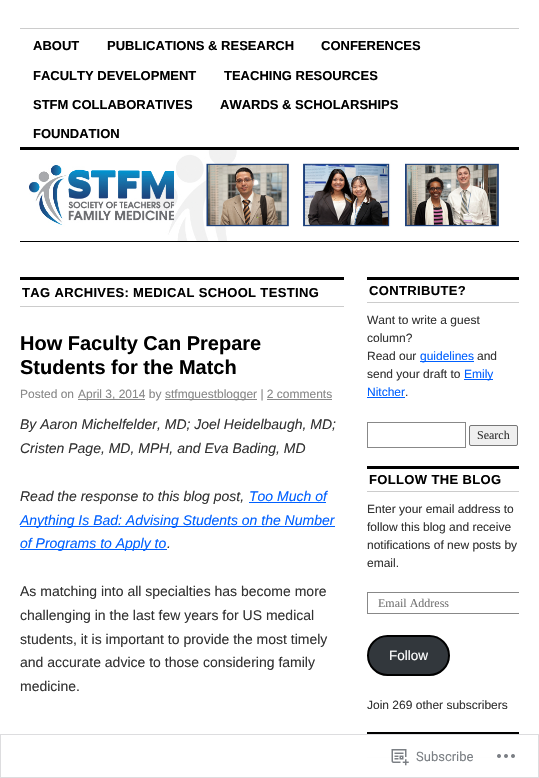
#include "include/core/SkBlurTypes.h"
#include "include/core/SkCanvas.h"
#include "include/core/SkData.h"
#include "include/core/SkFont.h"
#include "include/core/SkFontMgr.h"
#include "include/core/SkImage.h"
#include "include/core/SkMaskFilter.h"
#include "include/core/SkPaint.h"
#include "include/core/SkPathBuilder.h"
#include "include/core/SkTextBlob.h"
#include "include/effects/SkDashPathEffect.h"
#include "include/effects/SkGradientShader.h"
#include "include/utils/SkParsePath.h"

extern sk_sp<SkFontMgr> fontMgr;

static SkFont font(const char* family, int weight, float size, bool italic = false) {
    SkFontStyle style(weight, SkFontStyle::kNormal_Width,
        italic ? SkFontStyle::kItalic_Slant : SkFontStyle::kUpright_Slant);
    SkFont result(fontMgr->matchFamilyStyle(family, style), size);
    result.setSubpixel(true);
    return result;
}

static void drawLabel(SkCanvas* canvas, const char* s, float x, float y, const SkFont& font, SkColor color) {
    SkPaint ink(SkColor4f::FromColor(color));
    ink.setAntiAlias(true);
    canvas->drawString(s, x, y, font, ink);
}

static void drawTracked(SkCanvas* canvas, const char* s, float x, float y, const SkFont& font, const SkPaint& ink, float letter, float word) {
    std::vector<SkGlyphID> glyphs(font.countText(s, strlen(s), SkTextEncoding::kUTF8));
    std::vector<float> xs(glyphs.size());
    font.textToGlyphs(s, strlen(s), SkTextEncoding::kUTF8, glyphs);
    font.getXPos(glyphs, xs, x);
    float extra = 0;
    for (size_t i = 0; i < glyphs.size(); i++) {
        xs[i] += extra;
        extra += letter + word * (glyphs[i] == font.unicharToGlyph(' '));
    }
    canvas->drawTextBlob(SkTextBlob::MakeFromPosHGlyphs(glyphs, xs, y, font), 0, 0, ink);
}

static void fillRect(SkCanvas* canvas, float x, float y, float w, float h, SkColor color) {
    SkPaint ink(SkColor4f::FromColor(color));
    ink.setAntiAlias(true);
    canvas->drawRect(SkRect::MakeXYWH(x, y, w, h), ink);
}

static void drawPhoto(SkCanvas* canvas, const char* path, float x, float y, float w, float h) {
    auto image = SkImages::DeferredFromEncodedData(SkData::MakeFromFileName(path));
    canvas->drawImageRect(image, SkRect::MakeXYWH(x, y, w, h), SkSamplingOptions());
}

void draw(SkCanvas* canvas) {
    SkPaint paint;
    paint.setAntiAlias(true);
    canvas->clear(0xFFFFFFFF);
    fillRect(canvas, 20, 28, 499, 1, 0xFFCCCCCC);
    SkFont font1 = font("Liberation Sans", 700, 13);
    drawLabel(canvas, "ABOUT", 33, 50, font1, 0xFF000000);
    drawLabel(canvas, "PUBLICATIONS & RESEARCH", 107, 50, font1, 0xFF000000);
    drawLabel(canvas, "CONFERENCES", 321, 50, font1, 0xFF000000);
    drawLabel(canvas, "FACULTY DEVELOPMENT", 33, 80, font1, 0xFF000000);
    drawLabel(canvas, "TEACHING RESOURCES", 224, 80, font1, 0xFF000000);
    drawLabel(canvas, "STFM COLLABORATIVES", 33, 109, font1, 0xFF000000);
    drawLabel(canvas, "AWARDS & SCHOLARSHIPS", 220, 109, font1, 0xFF000000);
    drawLabel(canvas, "FOUNDATION", 33, 138, font1, 0xFF000000);
    fillRect(canvas, 20, 147, 499, 3, 0xFF000000);
    drawPhoto(canvas, "assets/img1.png", 29, 150, 470, 91);
    fillRect(canvas, 20, 241, 499, 1, 0xFF000000);
    fillRect(canvas, 20, 277, 324, 3, 0xFF000000);
    fillRect(canvas, 20, 306, 324, 1, 0xFFCCCCCC);
    paint.setColor(0xFF000000);
    drawTracked(canvas, "TAG ARCHIVES: MEDICAL SCHOOL TESTING", 22, 297, font1, paint, 0.35f, 0);
    SkFont font2 = font("Liberation Sans", 700, 20);
    drawLabel(canvas, "How Faculty Can Prepare", 20, 350, font2, 0xFF000000);
    drawLabel(canvas, "Students for the Match", 20, 374, font2, 0xFF000000);
    SkFont font3 = font("Liberation Sans", 400, 12);
    drawLabel(canvas, "Posted on", 20, 398, font3, 0xFF888888);
    fillRect(canvas, 78, 399, 67, 1, 0xFF888888);
    drawLabel(canvas, "April 3, 2014 by", 78, 398, font3, 0xFF888888);
    fillRect(canvas, 165, 399, 92, 1, 0xFF888888);
    drawLabel(canvas, "stfmguestblogger | 2 comments", 165, 398, font3, 0xFF888888);
    fillRect(canvas, 267, 399, 65, 1, 0xFF888888);
    SkFont font4 = font("Liberation Sans", 400, 14, true);
    drawLabel(canvas, "By Aaron Michelfelder, MD; Joel Heidelbaugh, MD;", 20, 429, font4, 0xFF333333);
    drawLabel(canvas, "Cristen Page, MD, MPH, and Eva Bading, MD", 20, 453, font4, 0xFF333333);
    drawLabel(canvas, "Read the response to this blog post,", 20, 501, font4, 0xFF333333);
    drawLabel(canvas, "Too Much of", 249, 501, font4, 0xFF0060FF);
    fillRect(canvas, 249, 502, 77, 1, 0xFF0060FF);
    fillRect(canvas, 20, 526, 315, 1, 0xFF0060FF);
    drawLabel(canvas, "Anything Is Bad: Advising Students on the Number", 20, 525, font4, 0xFF0060FF);
    fillRect(canvas, 20, 549, 147, 1, 0xFF0060FF);
    drawLabel(canvas, "of Programs to Apply to", 20, 548, font4, 0xFF0060FF);
    drawLabel(canvas, ".", 167, 548, font4, 0xFF333333);
    SkFont font5 = font("Liberation Sans", 400, 14);
    drawLabel(canvas, "As matching into all specialties has become more", 20, 596, font5, 0xFF333333);
    drawLabel(canvas, "challenging in the last few years for US medical", 20, 620, font5, 0xFF333333);
    drawLabel(canvas, "students, it is important to provide the most timely", 20, 644, font5, 0xFF333333);
    drawLabel(canvas, "and accurate advice to those considering family", 20, 667, font5, 0xFF333333);
    drawLabel(canvas, "medicine.", 20, 691, font5, 0xFF333333);
    fillRect(canvas, 367, 277, 152, 3, 0xFF000000);
    fillRect(canvas, 367, 302, 152, 1, 0xFFCCCCCC);
    drawTracked(canvas, "CONTRIBUTE?", 369, 295, font1, paint, 0.35f, 0);
    drawLabel(canvas, "Want to write a guest", 367, 324, font3, 0xFF333333);
    drawLabel(canvas, "column?", 367, 342, font3, 0xFF333333);
    drawLabel(canvas, "Read our", 367, 360, font3, 0xFF333333);
    fillRect(canvas, 420, 361, 54, 1, 0xFF0060FF);
    drawLabel(canvas, "guidelines", 420, 360, font3, 0xFF0060FF);
    drawLabel(canvas, "and", 477, 360, font3, 0xFF333333);
    drawLabel(canvas, "send your draft to", 367, 378, font3, 0xFF333333);
    fillRect(canvas, 464, 379, 29, 1, 0xFF0060FF);
    drawLabel(canvas, "Emily", 464, 378, font3, 0xFF0060FF);
    drawLabel(canvas, "Nitcher", 367, 396, font3, 0xFF0060FF);
    fillRect(canvas, 367, 397, 38, 1, 0xFF0060FF);
    drawLabel(canvas, ".", 405, 396, font3, 0xFF333333);
    paint.setStroke(true);
    paint.setStrokeWidth(1);
    paint.setColor(0xFF888888);
    canvas->drawRect(SkRect::MakeXYWH(367.5f, 422.5f, 98, 25), paint);
    paint.setStroke(false);
    paint.setColor(0xFFEFEFEF);
    canvas->drawRoundRect(SkRect::MakeXYWH(469.5f, 425.5f, 48, 20), 1.5f, 1.5f, paint);
    paint.setStroke(true);
    paint.setColor(0xFF767676);
    canvas->drawRoundRect(SkRect::MakeXYWH(469.5f, 425.5f, 48, 20), 1.5f, 1.5f, paint);
    SkFont font6 = font("Liberation Serif", 400, 12);
    drawLabel(canvas, "Search", 477, 439, font6, 0xFF333333);
    fillRect(canvas, 367, 466, 152, 3, 0xFF000000);
    fillRect(canvas, 367, 491, 152, 1, 0xFFCCCCCC);
    paint.setStroke(false);
    paint.setColor(0xFF000000);
    drawTracked(canvas, "FOLLOW THE BLOG", 369, 484, font1, paint, 0.35f, 0);
    drawLabel(canvas, "Enter your email address to", 367, 513, font3, 0xFF333333);
    drawLabel(canvas, "follow this blog and receive", 367, 531, font3, 0xFF333333);
    drawLabel(canvas, "notifications of new posts by", 367, 549, font3, 0xFF333333);
    drawLabel(canvas, "email.", 367, 567, font3, 0xFF333333);
    canvas->save();
    canvas->clipRect(SkRect::MakeXYWH(367, 277, 152, 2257));
    paint.setStroke(true);
    paint.setColor(0xFF888888);
    canvas->drawRect(SkRect::MakeXYWH(367.5f, 592.5f, 165, 21), paint);
    canvas->restore();
    drawLabel(canvas, "Email Address", 378, 607, font6, 0xFF757575);
    paint.setStroke(false);
    paint.setColor(0xFF32373C);
    canvas->drawRoundRect(SkRect::MakeXYWH(368, 636, 81, 39), 19.5f, 19.5f, paint);
    paint.setStroke(true);
    paint.setStrokeWidth(2);
    paint.setColor(0xFF000000);
    canvas->drawRoundRect(SkRect::MakeXYWH(368, 636, 81, 39), 19.5f, 19.5f, paint);
    SkFont font7 = font("Liberation Sans", 400, 13.5f);
    drawLabel(canvas, "Follow", 389, 660, font7, 0xFFFFFFFF);
    drawLabel(canvas, "Join 269 other subscribers", 367, 709, font3, 0xFF333333);
    fillRect(canvas, 367, 732, 152, 3, 0xFF000000);
    fillRect(canvas, 367, 757, 152, 1, 0xFFCCCCCC);
    fillRect(canvas, 367, 734, 152, 24, 0xFAFFFFFF);
    paint.setStrokeWidth(1);
    paint.setColor(0xFADCDCDE);
    canvas->drawRect(SkRect::MakeXYWH(0.5f, 734.5f, 538, 43), paint);
    drawPhoto(canvas, "assets/img2.png", 391, 749, 18, 17);
    SkFont font8 = font("Roboto", 400, 13);
    drawLabel(canvas, "Subscribe", 416, 761, font8, 0xFF7B7F84);
    drawPhoto(canvas, "assets/img3.png", 497, 754, 18, 4);
}
